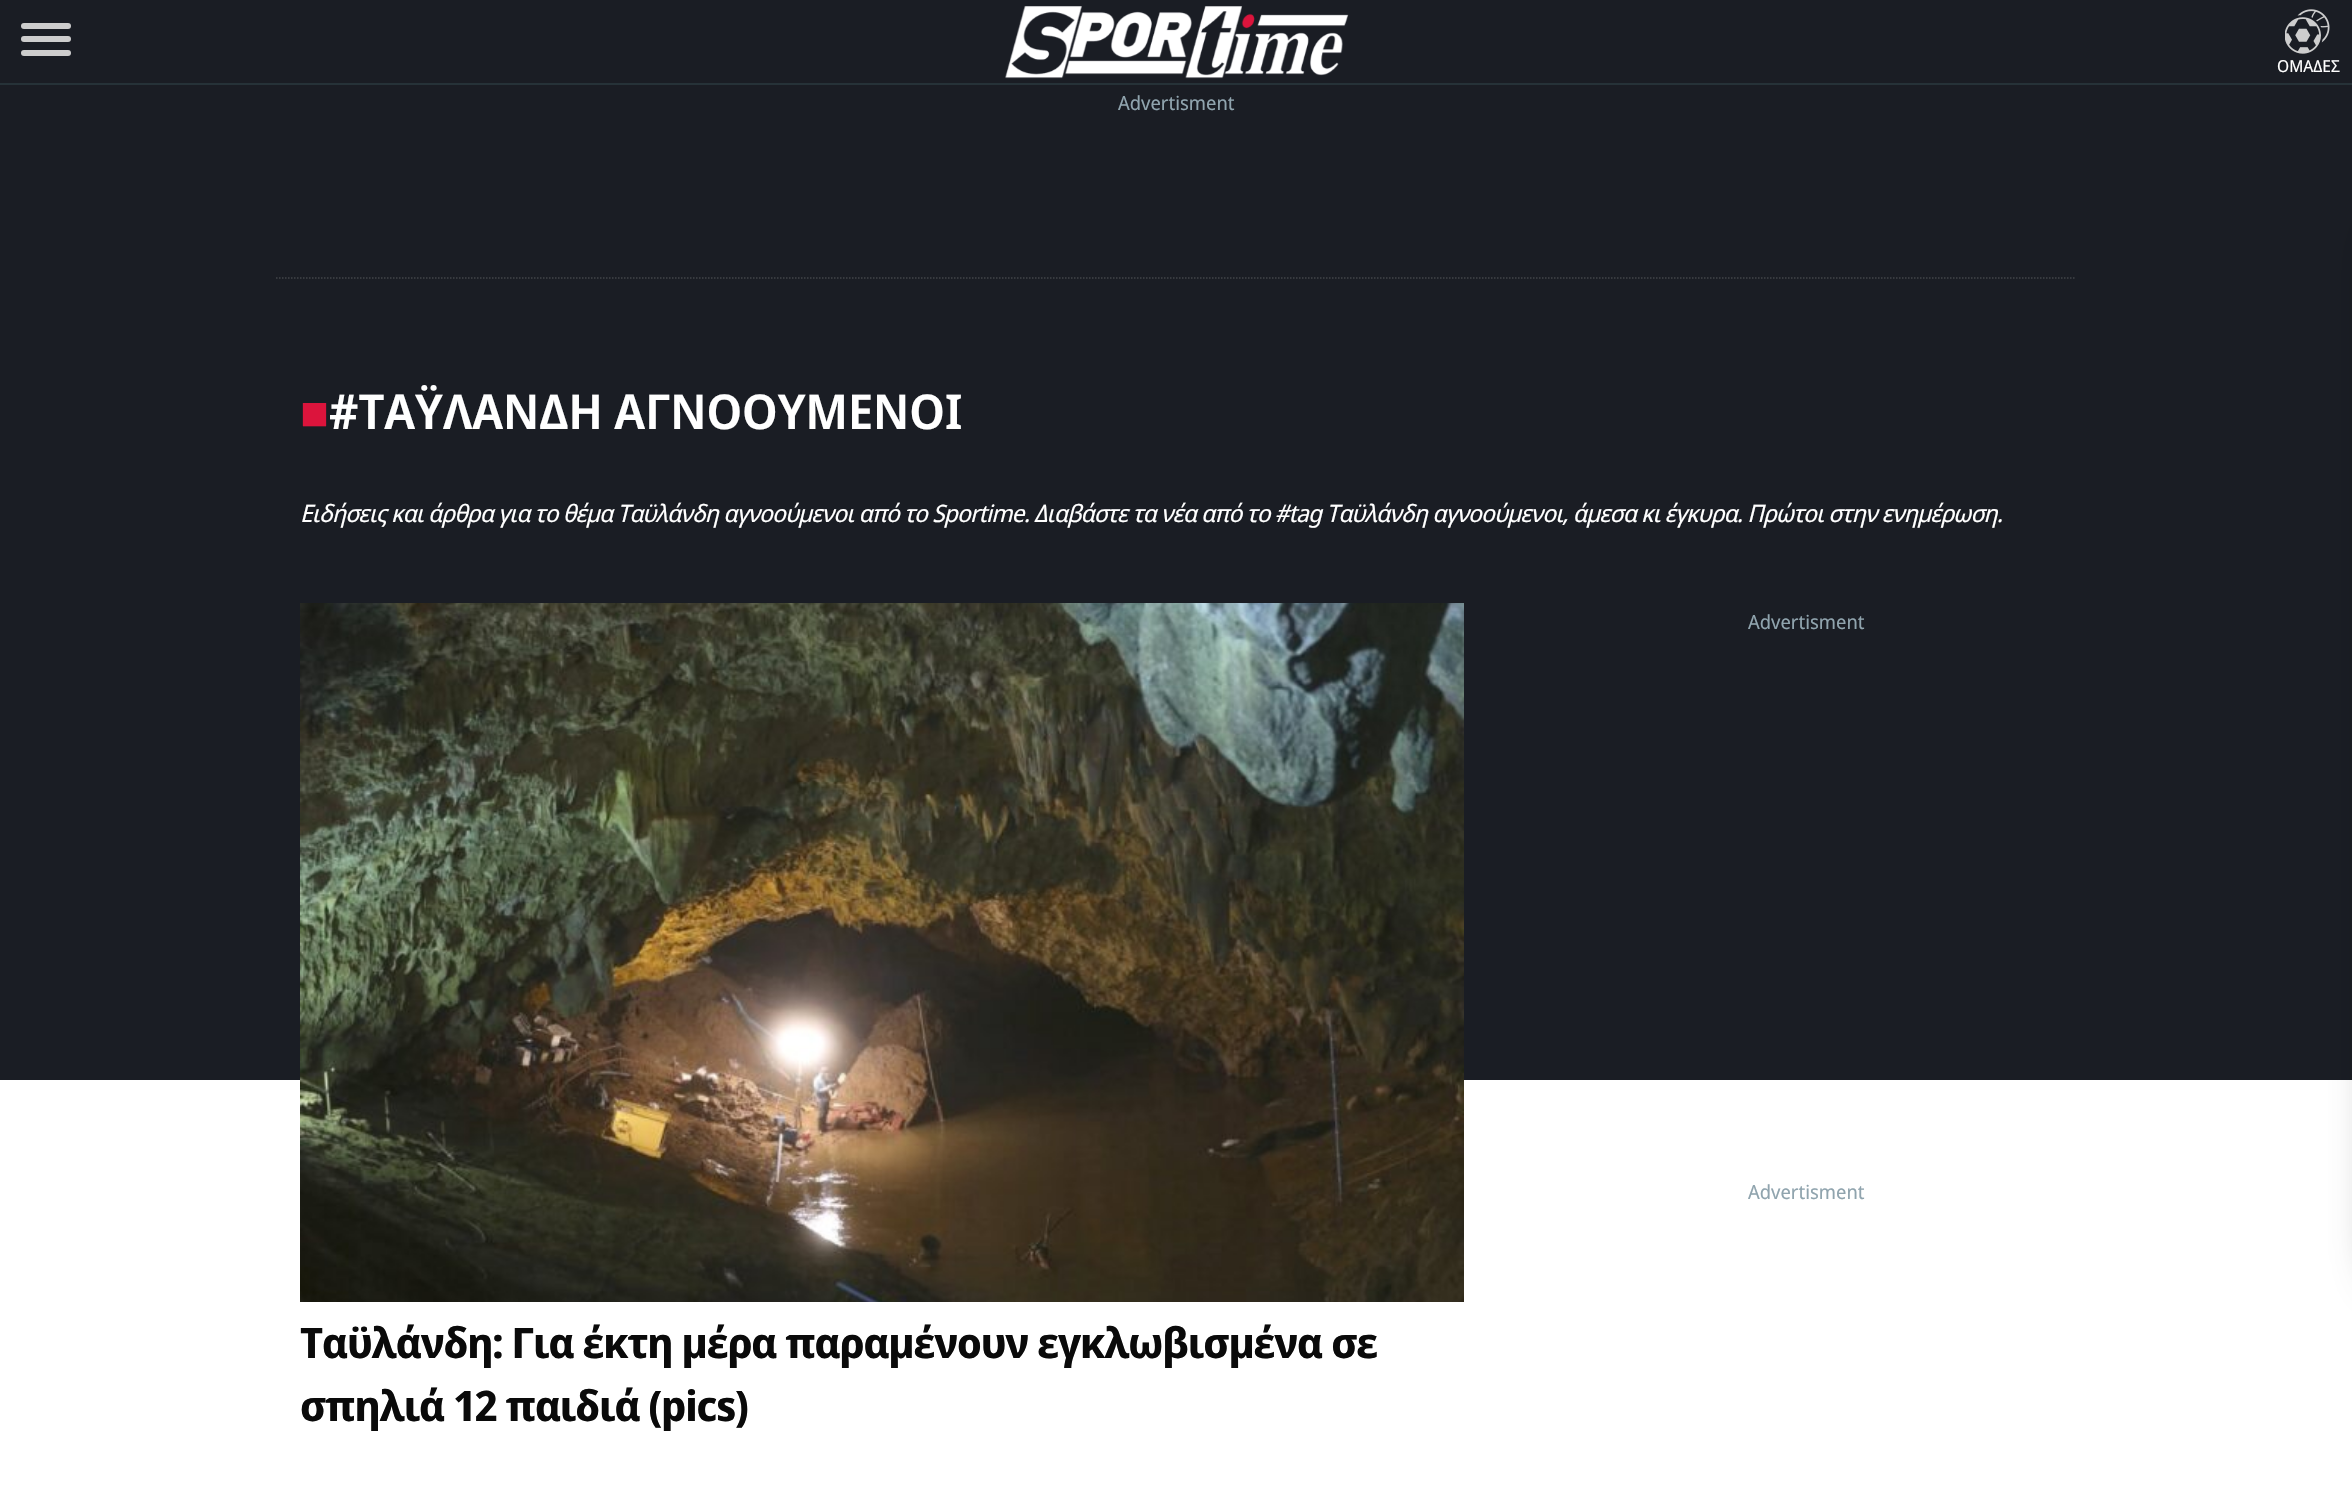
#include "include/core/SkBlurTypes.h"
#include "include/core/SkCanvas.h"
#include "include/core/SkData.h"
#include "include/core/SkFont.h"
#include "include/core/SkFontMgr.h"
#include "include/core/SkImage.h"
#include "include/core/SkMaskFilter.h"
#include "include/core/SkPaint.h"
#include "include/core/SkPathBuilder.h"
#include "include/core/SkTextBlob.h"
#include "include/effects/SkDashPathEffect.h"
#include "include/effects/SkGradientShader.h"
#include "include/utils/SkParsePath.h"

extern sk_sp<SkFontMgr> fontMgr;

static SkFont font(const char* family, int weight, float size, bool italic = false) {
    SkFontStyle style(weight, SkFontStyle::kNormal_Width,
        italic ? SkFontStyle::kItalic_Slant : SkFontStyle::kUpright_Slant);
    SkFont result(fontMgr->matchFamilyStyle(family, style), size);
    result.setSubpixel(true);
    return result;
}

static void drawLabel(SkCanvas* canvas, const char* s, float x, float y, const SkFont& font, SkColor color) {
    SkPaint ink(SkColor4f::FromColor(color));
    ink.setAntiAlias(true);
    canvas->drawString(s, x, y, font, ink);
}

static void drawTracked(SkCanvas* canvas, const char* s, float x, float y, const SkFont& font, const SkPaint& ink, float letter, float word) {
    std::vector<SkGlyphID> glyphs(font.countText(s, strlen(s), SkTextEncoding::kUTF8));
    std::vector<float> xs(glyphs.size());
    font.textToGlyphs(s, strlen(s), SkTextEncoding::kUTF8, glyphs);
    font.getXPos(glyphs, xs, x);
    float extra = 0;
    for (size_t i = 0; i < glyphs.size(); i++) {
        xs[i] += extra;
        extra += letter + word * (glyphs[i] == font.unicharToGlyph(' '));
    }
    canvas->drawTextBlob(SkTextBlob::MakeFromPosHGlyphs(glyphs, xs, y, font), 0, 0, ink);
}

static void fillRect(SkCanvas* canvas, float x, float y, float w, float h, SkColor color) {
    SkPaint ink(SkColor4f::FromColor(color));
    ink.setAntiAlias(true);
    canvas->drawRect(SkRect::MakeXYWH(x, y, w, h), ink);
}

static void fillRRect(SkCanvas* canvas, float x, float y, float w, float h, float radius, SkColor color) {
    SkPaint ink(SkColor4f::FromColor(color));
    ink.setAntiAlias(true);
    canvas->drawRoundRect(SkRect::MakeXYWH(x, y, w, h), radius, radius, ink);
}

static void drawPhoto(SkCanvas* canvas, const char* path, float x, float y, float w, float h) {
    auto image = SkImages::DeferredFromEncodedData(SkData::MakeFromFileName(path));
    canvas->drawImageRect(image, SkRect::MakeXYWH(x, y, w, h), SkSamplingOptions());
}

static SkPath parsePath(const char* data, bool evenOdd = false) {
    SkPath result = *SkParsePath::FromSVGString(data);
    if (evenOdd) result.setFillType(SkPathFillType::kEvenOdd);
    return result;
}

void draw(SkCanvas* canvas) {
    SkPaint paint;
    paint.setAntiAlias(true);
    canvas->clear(0xFFFFFFFF);
    fillRect(canvas, 0, 0, 2352, 1080, 0xFF1A1D24);
    fillRect(canvas, 0, 83, 2352, 2, 0xFF263238);
    fillRRect(canvas, 21, 23, 50, 6, 3, 0xFFCDCDCD);
    fillRRect(canvas, 21, 36, 50, 6, 3, 0xFFCDCDCD);
    fillRRect(canvas, 21, 50, 50, 6, 3, 0xFFCDCDCD);
    drawPhoto(canvas, "assets/img1.png", 1005, 6, 344, 73);
    drawPhoto(canvas, "assets/img2.png", 2285, 9, 45, 45);
    SkFont font1 = font("Noto Sans Display", 400, 16.5f);
    drawLabel(canvas, "ΟΜΑΔΕΣ", 2277, 72, font1, 0xFFFFFFFF);
    paint.setColor(0x99000000);
    paint.setMaskFilter(SkMaskFilter::MakeBlur(kNormal_SkBlurStyle, 22.5f));
    canvas->drawRoundRect(SkRect::MakeXYWH(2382, 225, 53, 1053), 26.5f, 26.5f, paint);
    paint.setMaskFilter(nullptr);
    paint.setStroke(true);
    paint.setStrokeWidth(1.5f);
    paint.setColor(0xFF404348);
    paint.setPathEffect(SkDashPathEffect::Make({{1.5f, 1.5f}}, 0));
    canvas->drawPath(parsePath("M276 278H2076"), paint);
    paint.setPathEffect(nullptr);
    SkFont font2 = font("Noto Sans Display", 400, 19.5f);
    drawLabel(canvas, "Advertisment", 1118, 110, font2, 0xFF90A4AE);
    SkFont font3 = font("Liberation Sans", 700, 48);
    drawLabel(canvas, "■", 300, 429, font3, 0xFFDC143C);
    SkFont font4 = font("Noto Sans Display", 600, 48);
    drawLabel(canvas, "#ΤΑΫΛΑΝΔΗ ΑΓΝΟΟΥΜΕΝΟΙ", 329, 429, font4, 0xFFFFFFFF);
    SkFont font5 = font("Noto Sans Display", 400, 24, true);
    paint.setStroke(false);
    paint.setColor(0xFFFFFFFF);
    drawTracked(canvas, "Ειδήσεις και άρθρα για το θέμα Ταϋλάνδη αγνοούμενοι από το Sportime. Διαβάστε τα νέα από το #tag Ταϋλάνδη αγνοούμενοι, άμεσα κι έγκυρα. Πρώτοι στην ενημέρωση.", 300, 522, font5, paint, -0.75f, 0);
    drawLabel(canvas, "Advertisment", 1748, 629, font2, 0xFF90A4AE);
    drawLabel(canvas, "Advertisment", 1748, 1199, font2, 0xFF90A4AE);
    drawPhoto(canvas, "assets/img3.png", 300, 603, 1164, 699);
    SkFont font6 = font("Noto Sans Display", 700, 42);
    paint.setColor(0xFF0A0A0A);
    drawTracked(canvas, "Ταϋλάνδη: Για έκτη μέρα παραμένουν εγκλωβισμένα σε", 300, 1358, font6, paint, -1.12f, 0);
    drawTracked(canvas, "σπηλιά 12 παιδιά (pics)", 300, 1421, font6, paint, -1.12f, 0);
}
